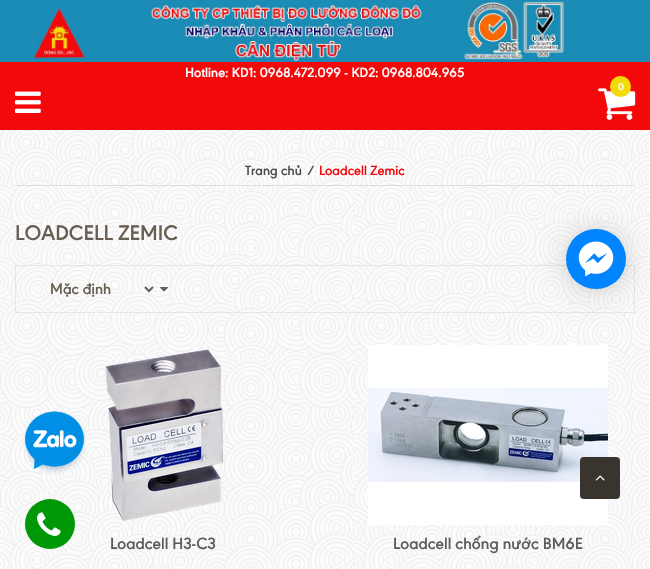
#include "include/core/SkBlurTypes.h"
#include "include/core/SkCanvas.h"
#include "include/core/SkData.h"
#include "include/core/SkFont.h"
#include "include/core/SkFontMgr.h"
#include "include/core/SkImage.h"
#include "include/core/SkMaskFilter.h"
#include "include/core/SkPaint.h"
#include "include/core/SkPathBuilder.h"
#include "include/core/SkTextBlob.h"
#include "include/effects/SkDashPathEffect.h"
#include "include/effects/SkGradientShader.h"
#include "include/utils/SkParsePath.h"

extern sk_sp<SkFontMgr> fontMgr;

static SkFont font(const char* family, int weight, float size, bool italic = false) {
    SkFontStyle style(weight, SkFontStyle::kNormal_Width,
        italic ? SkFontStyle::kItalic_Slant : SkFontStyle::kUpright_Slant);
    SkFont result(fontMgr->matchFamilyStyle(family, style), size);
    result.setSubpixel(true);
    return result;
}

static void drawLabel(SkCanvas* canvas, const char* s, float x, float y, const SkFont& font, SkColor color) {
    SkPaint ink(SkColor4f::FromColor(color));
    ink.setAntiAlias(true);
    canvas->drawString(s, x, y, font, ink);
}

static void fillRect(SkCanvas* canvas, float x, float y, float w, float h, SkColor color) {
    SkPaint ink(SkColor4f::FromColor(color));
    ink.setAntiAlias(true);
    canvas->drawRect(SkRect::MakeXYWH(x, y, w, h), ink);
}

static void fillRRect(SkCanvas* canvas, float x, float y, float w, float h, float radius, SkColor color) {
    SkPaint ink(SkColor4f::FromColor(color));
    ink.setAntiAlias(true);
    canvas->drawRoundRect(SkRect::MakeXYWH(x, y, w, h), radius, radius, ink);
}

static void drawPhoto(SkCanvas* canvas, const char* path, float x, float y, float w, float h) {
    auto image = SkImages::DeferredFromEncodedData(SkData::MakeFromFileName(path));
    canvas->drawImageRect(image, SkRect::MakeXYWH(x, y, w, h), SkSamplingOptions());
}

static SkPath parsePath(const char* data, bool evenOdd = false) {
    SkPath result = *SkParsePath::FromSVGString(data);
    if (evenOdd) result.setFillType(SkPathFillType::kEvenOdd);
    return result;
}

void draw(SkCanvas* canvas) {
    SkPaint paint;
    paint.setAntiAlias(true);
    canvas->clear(0xFFF9F9F9);
    drawPhoto(canvas, "assets/img1.png", 0, 130, 650, 439);
    fillRect(canvas, 0, 62, 650, 68, 0xFFF3090A);
    drawPhoto(canvas, "assets/img2.png", 0, 0, 650, 62);
    SkFont font1 = font("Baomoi", 600, 14);
    drawLabel(canvas, "Hotline: KD1: 0968.472.099 - KD2: 0968.804.965", 185, 77, font1, 0xFFFFFFFF);
    drawPhoto(canvas, "assets/img3.png", 598, 88, 38, 32);
    paint.setColor(0xFFF3DB09);
    canvas->drawCircle(620.5f, 86.5f, 10.5f, paint);
    SkFont font2 = font("Baomoi", 600, 10);
    drawLabel(canvas, "0", 618, 90, font2, 0xFFFFFFFF);
    drawPhoto(canvas, "assets/img4.png", 15, 91, 26, 22);
    fillRect(canvas, 15, 185, 620, 1, 0xFFDDDDDD);
    drawLabel(canvas, "Trang chủ", 245, 175, font1, 0xFF4A4A4A);
    drawLabel(canvas, "/", 307, 175, font1, 0xFF4A4A4A);
    drawLabel(canvas, "Loadcell Zemic", 319, 175, font1, 0xFFF3090A);
    SkFont font3 = font("Baomoi", 600, 22);
    drawLabel(canvas, "LOADCELL ZEMIC", 15, 240, font3, 0xFF685E52);
    paint.setStroke(true);
    paint.setStrokeWidth(1);
    paint.setColor(0xFFE8E6E2);
    canvas->drawRect(SkRect::MakeXYWH(15.5f, 265.5f, 619, 47), paint);
    paint.setStrokeWidth(2);
    paint.setColor(0xFF685E52);
    canvas->drawPath(parsePath("M145 287L149 291L153 287"), paint);
    SkFont font4 = font("Baomoi", 600, 16);
    drawLabel(canvas, "Mặc định", 50, 294, font4, 0xFF685E52);
    drawPhoto(canvas, "assets/img5.png", 160, 287, 8, 5);
    drawPhoto(canvas, "assets/img6.png", 105, 349, 118, 172);
    SkFont font5 = font("Baomoi", 600, 17);
    drawLabel(canvas, "Loadcell H3-C3", 110, 549, font5, 0xFF5C5C5C);
    drawPhoto(canvas, "assets/img7.png", 368, 345, 240, 180);
    drawLabel(canvas, "Loadcell chống nước BM6E", 393, 549, font5, 0xFF5C5C5C);
    paint.setStroke(false);
    paint.setColor(0x29000000);
    paint.setMaskFilter(SkMaskFilter::MakeBlur(kNormal_SkBlurStyle, 16));
    canvas->drawRoundRect(SkRect::MakeXYWH(566, 231, 60, 60), 30, 30, paint);
    paint.setMaskFilter(nullptr);
    paint.setColor(0x0F000000);
    paint.setMaskFilter(SkMaskFilter::MakeBlur(kNormal_SkBlurStyle, 3));
    canvas->drawRoundRect(SkRect::MakeXYWH(566, 230, 60, 60), 30, 30, paint);
    paint.setMaskFilter(nullptr);
    paint.setColor(0xFF0084FF);
    canvas->drawCircle(596, 259, 30, paint);
    drawPhoto(canvas, "assets/img8.png", 572, 235, 48, 48);
    drawPhoto(canvas, "assets/img9.png", 23, 411, 63, 64);
    fillRRect(canvas, 580, 457, 40, 42, 4, 0xFF39342E);
    drawPhoto(canvas, "assets/img10.png", 595, 475, 10, 6);
    paint.setColor(0xFF009806);
    canvas->drawCircle(50, 524, 25, paint);
    drawPhoto(canvas, "assets/img11.png", 37, 512, 24, 24);
}
